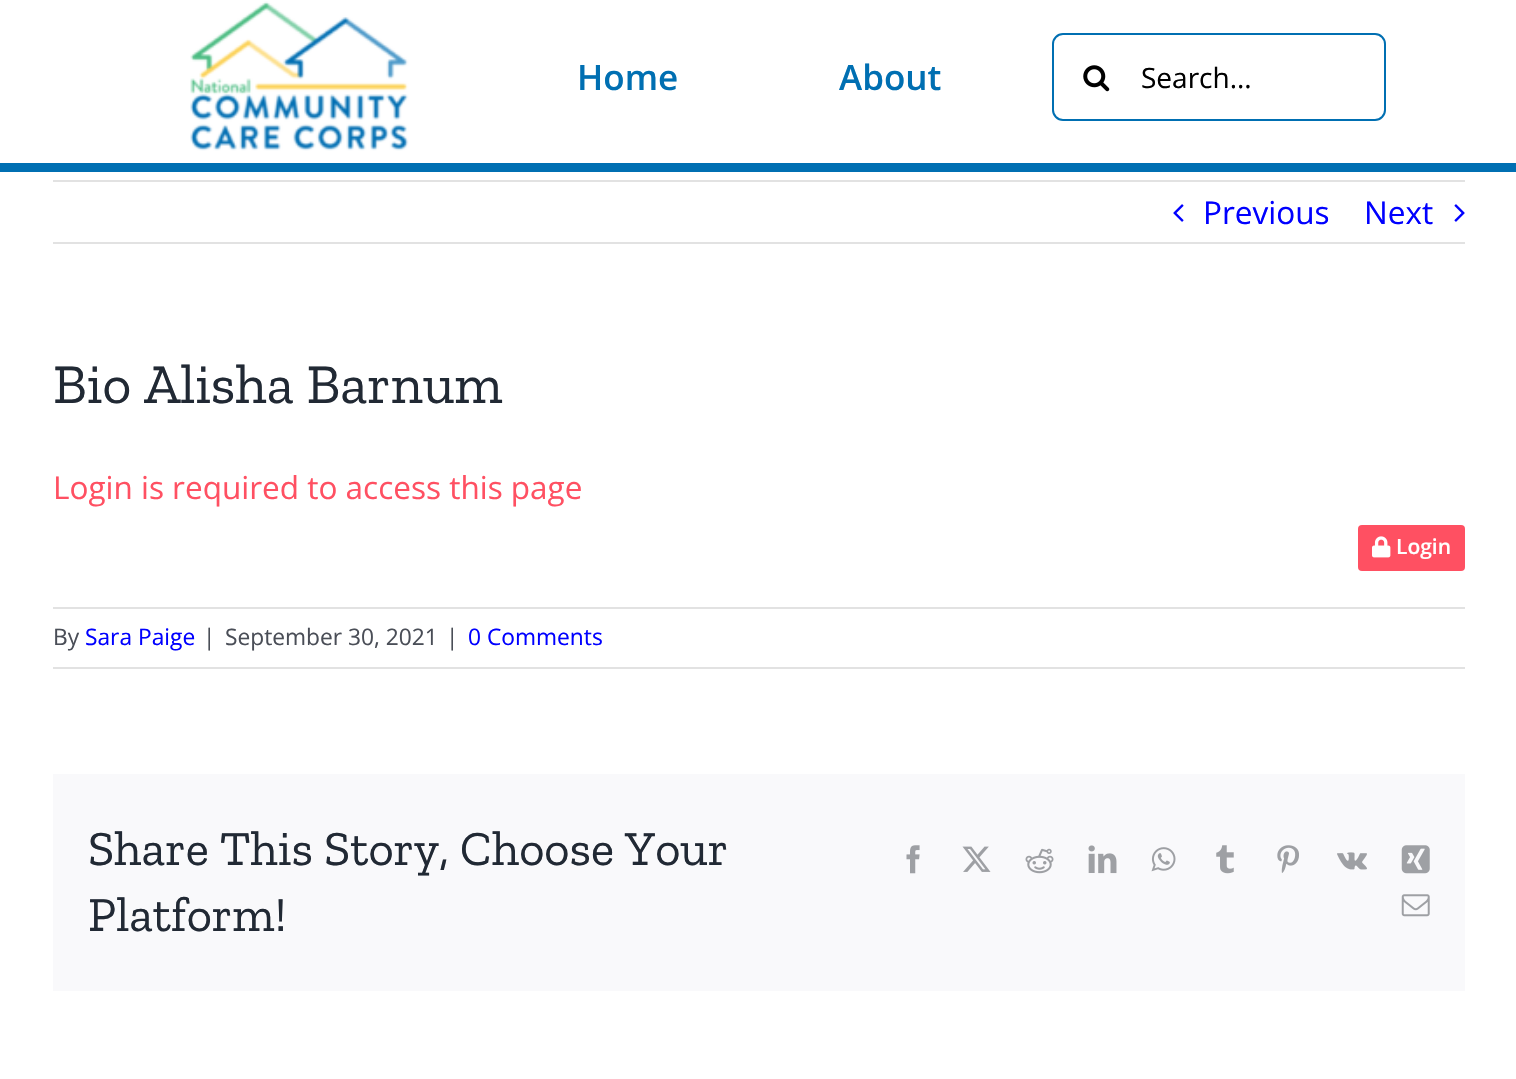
#include "include/core/SkBlurTypes.h"
#include "include/core/SkCanvas.h"
#include "include/core/SkData.h"
#include "include/core/SkFont.h"
#include "include/core/SkFontMgr.h"
#include "include/core/SkImage.h"
#include "include/core/SkMaskFilter.h"
#include "include/core/SkPaint.h"
#include "include/core/SkPathBuilder.h"
#include "include/core/SkTextBlob.h"
#include "include/effects/SkDashPathEffect.h"
#include "include/effects/SkGradientShader.h"
#include "include/utils/SkParsePath.h"

extern sk_sp<SkFontMgr> fontMgr;

static SkFont font(const char* family, int weight, float size, bool italic = false) {
    SkFontStyle style(weight, SkFontStyle::kNormal_Width,
        italic ? SkFontStyle::kItalic_Slant : SkFontStyle::kUpright_Slant);
    SkFont result(fontMgr->matchFamilyStyle(family, style), size);
    result.setSubpixel(true);
    return result;
}

static void drawLabel(SkCanvas* canvas, const char* s, float x, float y, const SkFont& font, SkColor color) {
    SkPaint ink(SkColor4f::FromColor(color));
    ink.setAntiAlias(true);
    canvas->drawString(s, x, y, font, ink);
}

static void fillRect(SkCanvas* canvas, float x, float y, float w, float h, SkColor color) {
    SkPaint ink(SkColor4f::FromColor(color));
    ink.setAntiAlias(true);
    canvas->drawRect(SkRect::MakeXYWH(x, y, w, h), ink);
}

static void fillRRect(SkCanvas* canvas, float x, float y, float w, float h, float radius, SkColor color) {
    SkPaint ink(SkColor4f::FromColor(color));
    ink.setAntiAlias(true);
    canvas->drawRoundRect(SkRect::MakeXYWH(x, y, w, h), radius, radius, ink);
}

static void drawPhoto(SkCanvas* canvas, const char* path, float x, float y, float w, float h) {
    auto image = SkImages::DeferredFromEncodedData(SkData::MakeFromFileName(path));
    canvas->drawImageRect(image, SkRect::MakeXYWH(x, y, w, h), SkSamplingOptions());
}

void draw(SkCanvas* canvas) {
    SkPaint paint;
    paint.setAntiAlias(true);
    canvas->clear(0xFFFFFFFF);
    drawPhoto(canvas, "assets/img1.png", 190, 1, 219, 150);
    SkFont font1 = font("Open Sans", 600, 35);
    drawLabel(canvas, "Home", 577, 90, font1, 0xFF006FB2);
    drawLabel(canvas, "About", 839, 90, font1, 0xFF006FB2);
    paint.setStroke(true);
    paint.setStrokeWidth(2);
    paint.setColor(0xFF006FB2);
    canvas->drawRoundRect(SkRect::MakeXYWH(1053, 34, 332, 86), 10, 10, paint);
    drawPhoto(canvas, "assets/img2.png", 1083, 65, 27, 27);
    SkFont font2 = font("Open Sans", 400, 28);
    drawLabel(canvas, "Search...", 1141, 88, font2, 0xFF000000);
    fillRect(canvas, 0, 163, 1516, 9, 0xFF006FB2);
    fillRect(canvas, 53, 180, 1412, 2, 0xFFE2E2E2);
    fillRect(canvas, 53, 242, 1412, 2, 0xFFE2E2E2);
    drawPhoto(canvas, "assets/img3.png", 1173, 204, 11, 18);
    SkFont font3 = font("Open Sans", 400, 31.5f);
    drawLabel(canvas, "Previous", 1203, 224, font3, 0xFF0000FF);
    drawLabel(canvas, "Next", 1364, 224, font3, 0xFF0000FF);
    drawPhoto(canvas, "assets/img4.png", 1454, 204, 11, 18);
    SkFont font4 = font("Zilla Slab", 400, 56);
    drawLabel(canvas, "Bio Alisha Barnum", 53, 403, font4, 0xFF212934);
    drawLabel(canvas, "Login is required to access this page", 53, 499, font3, 0xFFFF5062);
    fillRRect(canvas, 1358, 525, 107, 46, 4, 0xFFFF5062);
    drawPhoto(canvas, "assets/img5.png", 1372, 536, 19, 22);
    SkFont font5 = font("Open Sans", 600, 21);
    drawLabel(canvas, "Login", 1396, 554, font5, 0xFFFFFFFF);
    fillRect(canvas, 53, 607, 1412, 2, 0xFFE2E2E2);
    fillRect(canvas, 53, 667, 1412, 2, 0xFFE2E2E2);
    SkFont font6 = font("Open Sans", 400, 22.75f);
    drawLabel(canvas, "By", 53, 645, font6, 0xFF4A4E57);
    drawLabel(canvas, "Sara Paige", 85, 645, font6, 0xFF0000FF);
    drawLabel(canvas, "|", 203, 645, font6, 0xFF4A4E57);
    drawLabel(canvas, "September 30, 2021", 225, 645, font6, 0xFF4A4E57);
    drawLabel(canvas, "|", 446, 645, font6, 0xFF4A4E57);
    drawLabel(canvas, "0 Comments", 468, 645, font6, 0xFF0000FF);
    fillRect(canvas, 53, 774, 1412, 217, 0xFFF9F9FB);
    SkFont font7 = font("Zilla Slab", 400, 49);
    drawLabel(canvas, "Share This Story, Choose Your", 88, 865, font7, 0xFF212934);
    drawLabel(canvas, "Platform!", 88, 931, font7, 0xFF212934);
    drawPhoto(canvas, "assets/img6.png", 906, 845, 14, 29);
    drawPhoto(canvas, "assets/img7.png", 962, 846, 29, 26);
    drawPhoto(canvas, "assets/img8.png", 1025, 848, 29, 26);
    drawPhoto(canvas, "assets/img9.png", 1088, 845, 29, 29);
    drawPhoto(canvas, "assets/img10.png", 1151, 847, 25, 25);
    drawPhoto(canvas, "assets/img11.png", 1216, 845, 18, 29);
    drawPhoto(canvas, "assets/img12.png", 1277, 845, 22, 28);
    drawPhoto(canvas, "assets/img13.png", 1337, 852, 30, 18);
    drawPhoto(canvas, "assets/img14.png", 1401, 845, 29, 29);
    drawPhoto(canvas, "assets/img15.png", 1401, 894, 29, 23);
}
